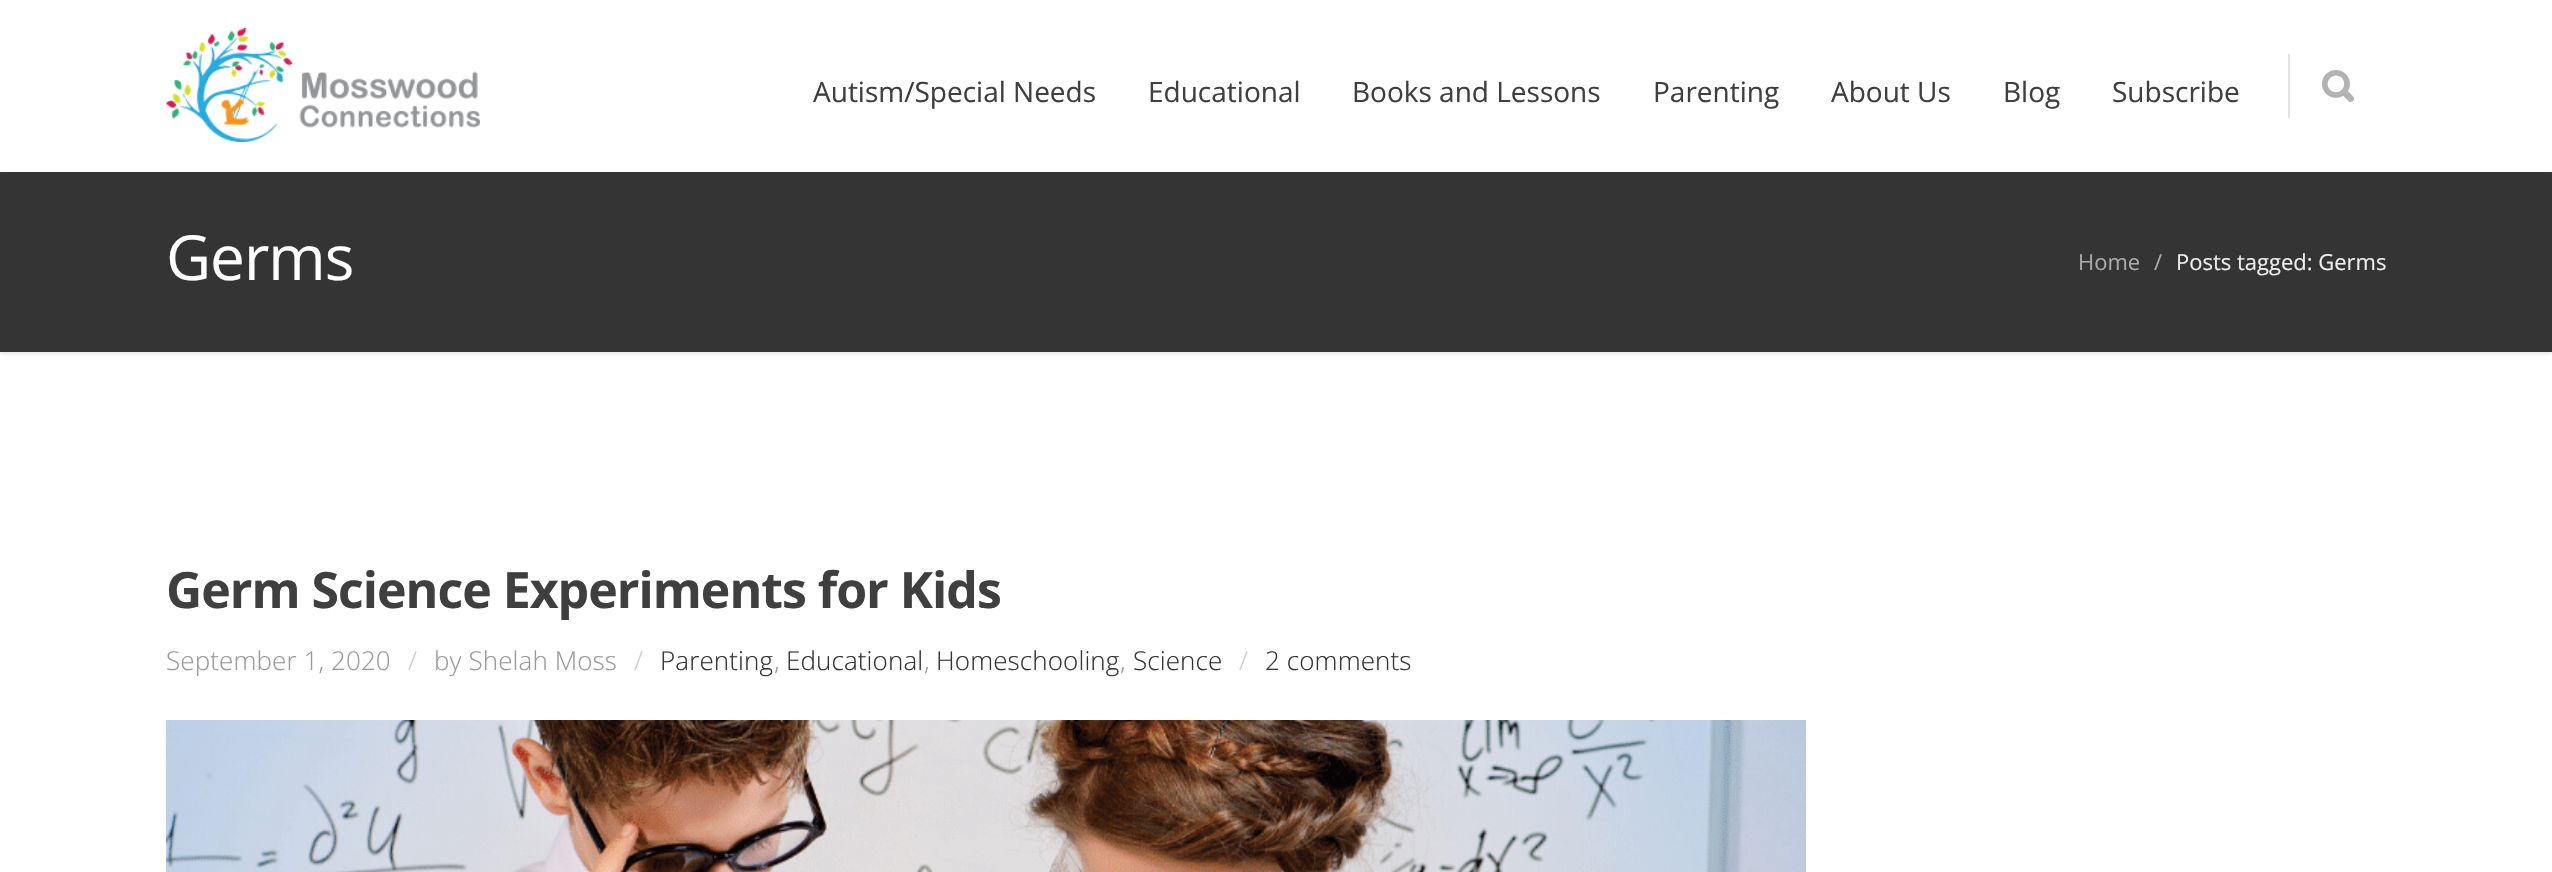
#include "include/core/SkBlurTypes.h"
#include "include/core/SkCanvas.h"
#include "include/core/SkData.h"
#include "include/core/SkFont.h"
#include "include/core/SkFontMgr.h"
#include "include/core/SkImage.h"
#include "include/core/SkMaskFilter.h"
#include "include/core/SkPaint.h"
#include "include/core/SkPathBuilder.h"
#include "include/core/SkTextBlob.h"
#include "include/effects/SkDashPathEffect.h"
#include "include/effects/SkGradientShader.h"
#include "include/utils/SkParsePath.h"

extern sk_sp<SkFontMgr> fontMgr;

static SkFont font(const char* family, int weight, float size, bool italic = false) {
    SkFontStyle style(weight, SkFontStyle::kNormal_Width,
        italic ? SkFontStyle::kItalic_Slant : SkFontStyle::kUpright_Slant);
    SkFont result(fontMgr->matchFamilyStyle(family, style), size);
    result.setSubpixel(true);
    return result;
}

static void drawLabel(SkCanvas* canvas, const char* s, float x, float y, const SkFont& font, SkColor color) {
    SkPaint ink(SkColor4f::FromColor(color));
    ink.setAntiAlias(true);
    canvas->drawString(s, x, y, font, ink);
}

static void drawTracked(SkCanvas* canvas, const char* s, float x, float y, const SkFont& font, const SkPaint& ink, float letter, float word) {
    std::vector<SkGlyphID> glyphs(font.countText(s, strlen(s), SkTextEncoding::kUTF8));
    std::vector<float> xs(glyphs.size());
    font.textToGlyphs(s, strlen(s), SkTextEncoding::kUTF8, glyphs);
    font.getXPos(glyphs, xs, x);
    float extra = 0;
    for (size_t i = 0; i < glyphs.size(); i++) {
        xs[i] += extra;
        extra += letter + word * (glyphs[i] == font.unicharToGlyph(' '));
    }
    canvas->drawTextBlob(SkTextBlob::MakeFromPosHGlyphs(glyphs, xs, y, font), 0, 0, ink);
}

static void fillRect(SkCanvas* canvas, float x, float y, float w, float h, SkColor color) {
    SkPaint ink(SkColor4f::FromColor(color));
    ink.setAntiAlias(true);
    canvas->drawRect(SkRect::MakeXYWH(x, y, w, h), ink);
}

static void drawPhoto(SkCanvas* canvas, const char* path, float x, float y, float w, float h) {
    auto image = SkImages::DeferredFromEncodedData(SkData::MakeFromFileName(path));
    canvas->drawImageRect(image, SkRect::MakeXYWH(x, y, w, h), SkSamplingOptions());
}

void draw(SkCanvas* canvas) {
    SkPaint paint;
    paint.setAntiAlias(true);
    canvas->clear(0xFFFFFFFF);
    drawPhoto(canvas, "assets/img1.png", 166, 28, 314, 114);
    SkFont font1 = font("Open Sans", 400, 28);
    drawLabel(canvas, "Autism/Special Needs", 813, 102, font1, 0xFF3F3F3F);
    drawLabel(canvas, "Educational", 1148, 102, font1, 0xFF3F3F3F);
    drawLabel(canvas, "Books and Lessons", 1352, 102, font1, 0xFF3F3F3F);
    drawLabel(canvas, "Parenting", 1653, 102, font1, 0xFF3F3F3F);
    drawLabel(canvas, "About Us", 1831, 102, font1, 0xFF3F3F3F);
    drawLabel(canvas, "Blog", 2003, 102, font1, 0xFF3F3F3F);
    drawLabel(canvas, "Subscribe", 2112, 102, font1, 0xFF3F3F3F);
    fillRect(canvas, 2288, 54, 2, 64, 0xFFE2E2E2);
    drawPhoto(canvas, "assets/img2.png", 2322, 70, 32, 32);
    paint.setColor(0x1A000000);
    paint.setMaskFilter(SkMaskFilter::MakeBlur(kNormal_SkBlurStyle, 2));
    canvas->drawRect(SkRect::MakeXYWH(0, 174, 2552, 180), paint);
    paint.setMaskFilter(nullptr);
    fillRect(canvas, 0, 172, 2552, 180, 0xFF343434);
    SkFont font2 = font("Open Sans", 400, 62);
    paint.setColor(0xFFFFFFFF);
    drawTracked(canvas, "Germs", 166, 280, font2, paint, -1, 0);
    SkFont font3 = font("Open Sans", 400, 22);
    drawLabel(canvas, "Home", 2078, 270, font3, 0xFFAAAAAA);
    drawLabel(canvas, "/", 2154, 270, font3, 0xFFAAAAAA);
    drawLabel(canvas, "Posts tagged: Germs", 2176, 270, font3, 0xFFEEEEEE);
    SkFont font4 = font("Open Sans", 700, 50);
    paint.setColor(0xFF3F3F3F);
    drawTracked(canvas, "Germ Science Experiments for Kids", 166, 608, font4, paint, -1, 0);
    SkFont font5 = font("Open Sans", 300, 26);
    paint.setColor(0xFF999999);
    drawTracked(canvas, "September 1, 2020", 166, 670, font5, paint, 0.1f, 0);
    paint.setColor(0xFFCCCCCC);
    drawTracked(canvas, "/", 408, 670, font5, paint, 0.1f, 0);
    paint.setColor(0xFF999999);
    drawTracked(canvas, "by Shelah Moss", 434, 670, font5, paint, 0.1f, 0);
    paint.setColor(0xFFCCCCCC);
    drawTracked(canvas, "/", 634, 670, font5, paint, 0.1f, 0);
    paint.setColor(0xFF333333);
    drawTracked(canvas, "Parenting", 660, 670, font5, paint, 0.1f, 0);
    paint.setColor(0xFF999999);
    drawTracked(canvas, ",", 774, 670, font5, paint, 0.1f, 0);
    paint.setColor(0xFF333333);
    drawTracked(canvas, "Educational", 786, 670, font5, paint, 0.1f, 0);
    paint.setColor(0xFF999999);
    drawTracked(canvas, ",", 924, 670, font5, paint, 0.1f, 0);
    paint.setColor(0xFF333333);
    drawTracked(canvas, "Homeschooling", 936, 670, font5, paint, 0.1f, 0);
    paint.setColor(0xFF999999);
    drawTracked(canvas, ",", 1120, 670, font5, paint, 0.1f, 0);
    paint.setColor(0xFF333333);
    drawTracked(canvas, "Science", 1133, 670, font5, paint, 0.1f, 0);
    paint.setColor(0xFFCCCCCC);
    drawTracked(canvas, "/", 1239, 670, font5, paint, 0.1f, 0);
    paint.setColor(0xFF333333);
    drawTracked(canvas, "2 comments", 1265, 670, font5, paint, 0.1f, 0);
    drawPhoto(canvas, "assets/img3.png", 166, 720, 1640, 152);
}
